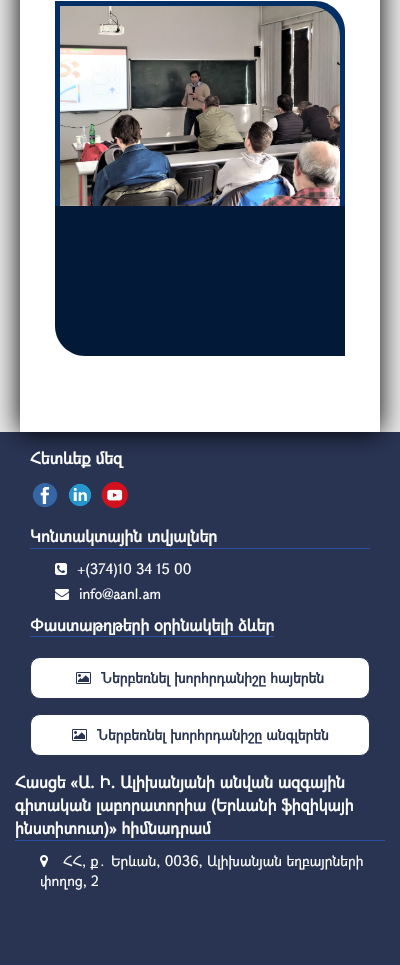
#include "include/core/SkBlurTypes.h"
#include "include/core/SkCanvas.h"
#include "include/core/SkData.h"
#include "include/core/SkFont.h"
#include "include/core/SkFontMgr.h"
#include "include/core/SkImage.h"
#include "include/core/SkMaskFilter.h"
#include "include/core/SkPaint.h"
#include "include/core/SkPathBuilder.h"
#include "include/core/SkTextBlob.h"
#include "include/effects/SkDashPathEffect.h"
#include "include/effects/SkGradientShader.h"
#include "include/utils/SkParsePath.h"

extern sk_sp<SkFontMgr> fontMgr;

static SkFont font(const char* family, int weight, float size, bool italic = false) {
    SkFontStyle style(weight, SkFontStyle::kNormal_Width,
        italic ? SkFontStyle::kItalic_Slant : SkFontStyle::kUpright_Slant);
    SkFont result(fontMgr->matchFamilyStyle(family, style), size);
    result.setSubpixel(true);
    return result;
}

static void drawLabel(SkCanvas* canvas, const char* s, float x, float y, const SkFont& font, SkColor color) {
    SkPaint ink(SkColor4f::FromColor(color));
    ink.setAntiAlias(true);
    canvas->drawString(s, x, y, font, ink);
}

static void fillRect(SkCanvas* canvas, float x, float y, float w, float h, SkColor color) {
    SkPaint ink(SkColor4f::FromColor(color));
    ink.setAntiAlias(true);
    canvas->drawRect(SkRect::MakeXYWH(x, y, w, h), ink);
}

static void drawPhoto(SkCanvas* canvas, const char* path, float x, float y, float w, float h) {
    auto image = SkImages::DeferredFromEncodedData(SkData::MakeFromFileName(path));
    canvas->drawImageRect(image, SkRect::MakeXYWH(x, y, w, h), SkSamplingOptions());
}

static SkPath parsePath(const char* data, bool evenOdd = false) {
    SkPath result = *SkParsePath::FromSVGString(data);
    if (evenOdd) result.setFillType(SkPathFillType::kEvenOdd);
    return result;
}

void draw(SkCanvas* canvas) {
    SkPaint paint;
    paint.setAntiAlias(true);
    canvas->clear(0xFFE7E7E7);
    fillRect(canvas, 0, 432, 400, 533, 0xFF293453);
    paint.setColor(0xFF000000);
    paint.setMaskFilter(SkMaskFilter::MakeBlur(kNormal_SkBlurStyle, 12.5f));
    canvas->drawRect(SkRect::MakeXYWH(20, -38, 360, 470), paint);
    paint.setMaskFilter(nullptr);
    fillRect(canvas, 20, 0, 360, 432, 0xFFFFFFFF);
    paint.setColor(0xFF032F64);
    canvas->drawPath(parsePath("M55 1H315C331.5 1 345 14.5 345 31V206H55Z"), paint);
    drawPhoto(canvas, "assets/img1.png", 60, 6, 280, 200);
    paint.setColor(0xFF021A37);
    canvas->drawPath(parsePath("M55 206H345V356H85C68.5 356 55 342.5 55 326Z"), paint);
    SkFont font1 = font("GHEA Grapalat", 700, 16);
    drawLabel(canvas, "Հետևեք մեզ", 30, 464, font1, 0xFFFFFFFF);
    drawPhoto(canvas, "assets/img2.png", 32, 482, 26, 26);
    drawPhoto(canvas, "assets/img3.png", 68, 483, 24, 24);
    drawPhoto(canvas, "assets/img4.png", 101, 481, 27, 28);
    fillRect(canvas, 30, 548, 340, 1, 0xFF2B509F);
    drawLabel(canvas, "Կոնտակտային տվյալներ", 30, 542, font1, 0xFFFFFFFF);
    drawPhoto(canvas, "assets/img5.png", 55, 563, 12, 12);
    SkFont font2 = font("GHEA Grapalat", 400, 14);
    drawLabel(canvas, "+(374)10 34 15 00", 77, 574, font2, 0xFFFFFFFF);
    drawPhoto(canvas, "assets/img6.png", 55, 589, 14, 11);
    drawLabel(canvas, "info@aanl.am", 79, 599, font2, 0xFFFFFFFF);
    fillRect(canvas, 30, 636, 244, 1, 0xFF2B509F);
    drawLabel(canvas, "Փաստաթղթերի օրինակելի ձևեր", 30, 631, font1, 0xFFFFFFFF);
    paint.setColor(0xFFFFFFFF);
    canvas->drawRoundRect(SkRect::MakeXYWH(30.5f, 657.5f, 339, 41), 9.5f, 9.5f, paint);
    paint.setStroke(true);
    paint.setStrokeWidth(1);
    paint.setColor(0xFF293453);
    canvas->drawRoundRect(SkRect::MakeXYWH(30.5f, 657.5f, 339, 41), 9.5f, 9.5f, paint);
    drawPhoto(canvas, "assets/img7.png", 76, 672, 15, 12);
    SkFont font3 = font("GHEA Grapalat", 700, 14);
    drawLabel(canvas, "Ներբեռնել խորհրդանիշը հայերեն", 101, 683, font3, 0xFF293453);
    paint.setStroke(false);
    paint.setColor(0xFFFFFFFF);
    canvas->drawRoundRect(SkRect::MakeXYWH(30.5f, 714.5f, 339, 41), 9.5f, 9.5f, paint);
    paint.setStroke(true);
    paint.setColor(0xFF293453);
    canvas->drawRoundRect(SkRect::MakeXYWH(30.5f, 714.5f, 339, 41), 9.5f, 9.5f, paint);
    drawPhoto(canvas, "assets/img7.png", 72, 729, 15, 12);
    drawLabel(canvas, "Ներբեռնել խորհրդանիշը անգլերեն", 97, 740, font3, 0xFF293453);
    fillRect(canvas, 15, 840, 370, 1, 0xFF2B509F);
    drawLabel(canvas, "Հասցե «Ա. Ի. Ալիխանյանի անվան ազգային", 15, 788, font1, 0xFFFFFFFF);
    drawLabel(canvas, "գիտական լաբորատորիա (Երևանի ֆիզիկայի", 15, 811, font1, 0xFFFFFFFF);
    drawLabel(canvas, "ինստիտուտ)» հիմնադրամ", 15, 834, font1, 0xFFFFFFFF);
    drawPhoto(canvas, "assets/img8.png", 40, 855, 8, 12);
    drawLabel(canvas, "ՀՀ, ք", 63, 866, font2, 0xFFFFFFFF);
    SkFont font4 = font("FreeSerif", 400, 14);
    drawLabel(canvas, "․", 98, 866, font4, 0xFFFFFFFF);
    drawLabel(canvas, "Երևան, 0036, Ալիխանյան եղբայրների", 111, 866, font2, 0xFFFFFFFF);
    drawLabel(canvas, "փողոց, 2", 40, 886, font2, 0xFFFFFFFF);
}
